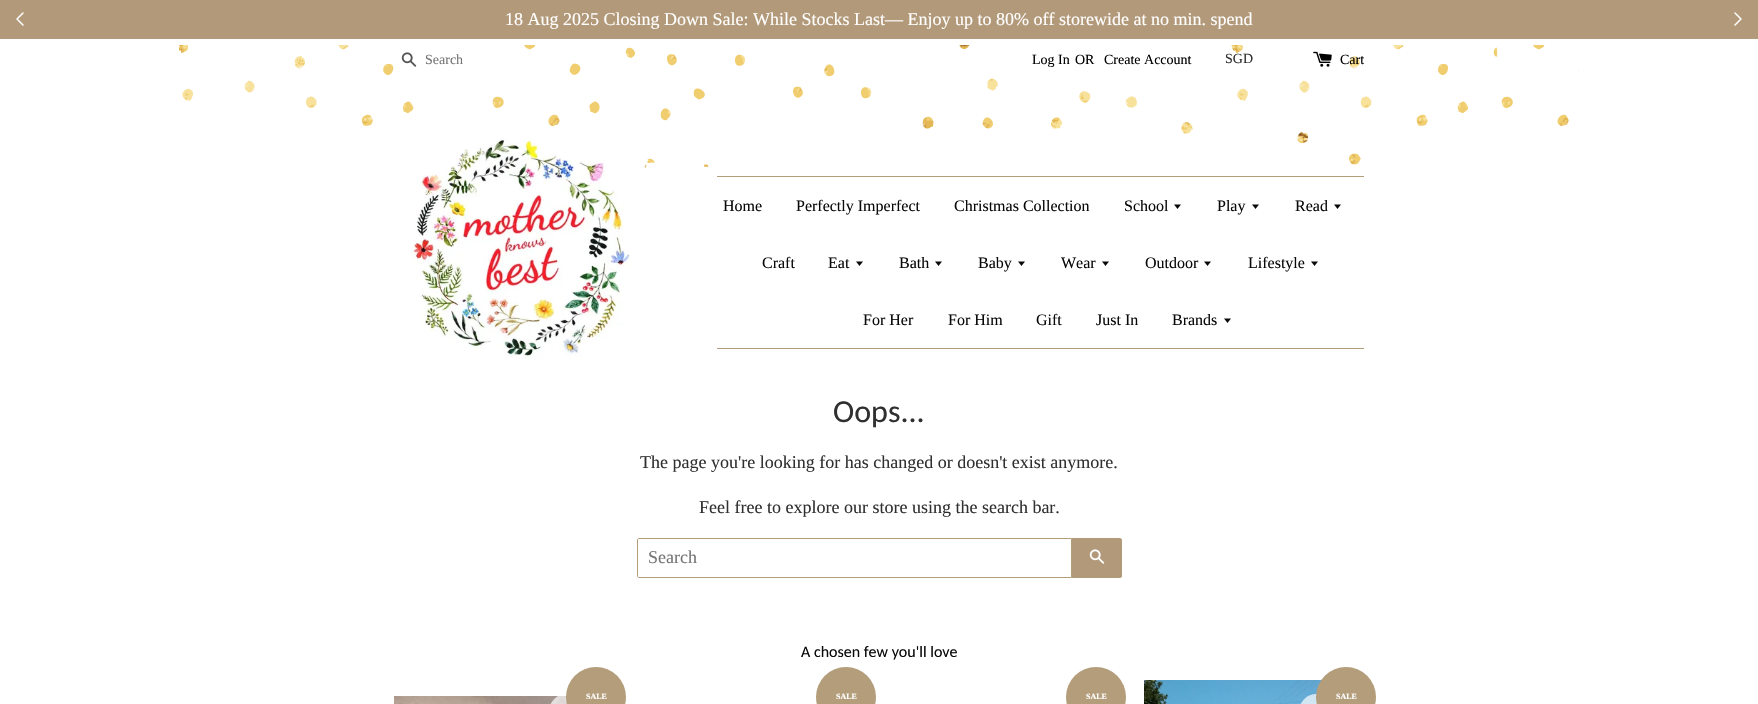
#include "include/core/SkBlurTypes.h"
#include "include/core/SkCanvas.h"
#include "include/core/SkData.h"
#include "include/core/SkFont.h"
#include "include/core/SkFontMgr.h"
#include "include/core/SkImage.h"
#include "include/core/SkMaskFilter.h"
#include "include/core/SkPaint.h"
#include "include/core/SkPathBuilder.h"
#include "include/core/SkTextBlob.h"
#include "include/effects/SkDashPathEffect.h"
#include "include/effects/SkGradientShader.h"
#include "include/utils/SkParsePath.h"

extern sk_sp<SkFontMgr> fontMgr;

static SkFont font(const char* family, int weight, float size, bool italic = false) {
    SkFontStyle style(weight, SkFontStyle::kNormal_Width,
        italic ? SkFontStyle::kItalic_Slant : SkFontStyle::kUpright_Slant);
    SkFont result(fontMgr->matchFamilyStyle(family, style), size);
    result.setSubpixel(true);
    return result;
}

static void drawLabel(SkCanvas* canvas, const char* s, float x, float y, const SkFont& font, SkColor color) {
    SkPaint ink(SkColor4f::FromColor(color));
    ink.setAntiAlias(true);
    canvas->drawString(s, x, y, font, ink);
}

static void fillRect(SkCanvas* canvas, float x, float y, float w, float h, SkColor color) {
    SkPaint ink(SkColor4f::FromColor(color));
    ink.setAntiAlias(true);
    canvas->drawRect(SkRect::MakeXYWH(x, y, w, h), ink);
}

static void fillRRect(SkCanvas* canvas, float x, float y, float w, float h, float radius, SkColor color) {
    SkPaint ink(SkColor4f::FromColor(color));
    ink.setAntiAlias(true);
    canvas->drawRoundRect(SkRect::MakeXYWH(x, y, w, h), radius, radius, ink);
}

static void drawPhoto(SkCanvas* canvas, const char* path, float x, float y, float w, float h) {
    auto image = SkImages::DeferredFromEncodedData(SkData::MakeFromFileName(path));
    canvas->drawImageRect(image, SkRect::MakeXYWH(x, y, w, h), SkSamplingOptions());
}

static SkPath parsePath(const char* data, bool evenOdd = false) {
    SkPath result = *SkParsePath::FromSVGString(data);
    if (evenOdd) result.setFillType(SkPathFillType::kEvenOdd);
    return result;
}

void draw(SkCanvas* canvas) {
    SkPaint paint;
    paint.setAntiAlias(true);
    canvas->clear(0xFFFFFFFF);
    drawPhoto(canvas, "assets/img1.png", 179, 45, 1400, 124);
    fillRect(canvas, 0, 0, 1758, 39, 0xFFB29979);
    paint.setStroke(true);
    paint.setStrokeWidth(1.5f);
    paint.setStrokeCap(SkPaint::kRound_Cap);
    paint.setStrokeJoin(SkPaint::kRound_Join);
    paint.setColor(0xFFFFFFFF);
    canvas->drawPath(parsePath("M23 13L17 19L23 25"), paint);
    SkFont font1 = font("Liberation Serif", 400, 18);
    drawLabel(canvas, "18 Aug 2025 Closing Down Sale: While Stocks Last— Enjoy up to 80% off storewide at no min. spend", 505, 25, font1, 0xFFFFFFFF);
    canvas->drawPath(parsePath("M1735 13L1741 19L1735 25"), paint);
    fillRRect(canvas, 394, 46, 120, 29, 14, 0xFFFFFFFF);
    drawPhoto(canvas, "assets/img2.png", 401, 52, 16, 15);
    SkFont font2 = font("Liberation Serif", 400, 14);
    drawLabel(canvas, "Search", 425, 64, font2, 0xFF757575);
    drawLabel(canvas, "Log In", 1032, 64, font2, 0xFF000000);
    drawLabel(canvas, "OR", 1075, 64, font2, 0xFF000000);
    drawLabel(canvas, "Create Account", 1104, 64, font2, 0xFF000000);
    drawLabel(canvas, "SGD", 1225, 63, font2, 0xFF303030);
    drawPhoto(canvas, "assets/img3.png", 1313, 51, 19, 16);
    drawLabel(canvas, "Cart", 1340, 64, font2, 0xFF000000);
    drawPhoto(canvas, "assets/img4.png", 404, 138, 226, 220);
    fillRect(canvas, 717, 176, 647, 1, 0xFFB49D7A);
    fillRect(canvas, 717, 348, 647, 1, 0xFFB49D7A);
    SkFont font3 = font("Liberation Serif", 400, 16);
    drawLabel(canvas, "Home", 723, 211, font3, 0xFF090909);
    drawLabel(canvas, "Perfectly Imperfect", 796, 211, font3, 0xFF090909);
    drawLabel(canvas, "Christmas Collection", 954, 211, font3, 0xFF090909);
    drawLabel(canvas, "School", 1124, 211, font3, 0xFF090909);
    paint.setStroke(false);
    paint.setColor(0xFF090909);
    canvas->drawPath(parsePath("M1174 204.5L1177.5 209L1181 204.5Z"), paint);
    drawLabel(canvas, "Play", 1217, 211, font3, 0xFF090909);
    canvas->drawPath(parsePath("M1252 204.5L1255.5 209L1259 204.5Z"), paint);
    drawLabel(canvas, "Read", 1295, 211, font3, 0xFF090909);
    canvas->drawPath(parsePath("M1334 204.5L1337.5 209L1341 204.5Z"), paint);
    drawLabel(canvas, "Craft", 762, 268, font3, 0xFF090909);
    drawLabel(canvas, "Eat", 828, 268, font3, 0xFF090909);
    canvas->drawPath(parsePath("M856 261.5L859.5 266L863 261.5Z"), paint);
    drawLabel(canvas, "Bath", 899, 268, font3, 0xFF090909);
    canvas->drawPath(parsePath("M935 261.5L938.5 266L942 261.5Z"), paint);
    drawLabel(canvas, "Baby", 978, 268, font3, 0xFF090909);
    canvas->drawPath(parsePath("M1018 261.5L1021.5 266L1025 261.5Z"), paint);
    drawLabel(canvas, "Wear", 1061, 268, font3, 0xFF090909);
    canvas->drawPath(parsePath("M1102 261.5L1105.5 266L1109 261.5Z"), paint);
    drawLabel(canvas, "Outdoor", 1145, 268, font3, 0xFF090909);
    canvas->drawPath(parsePath("M1204 261.5L1207.5 266L1211 261.5Z"), paint);
    drawLabel(canvas, "Lifestyle", 1248, 268, font3, 0xFF090909);
    canvas->drawPath(parsePath("M1311 261.5L1314.5 266L1318 261.5Z"), paint);
    drawLabel(canvas, "For Her", 863, 325, font3, 0xFF090909);
    drawLabel(canvas, "For Him", 948, 325, font3, 0xFF090909);
    drawLabel(canvas, "Gift", 1036, 325, font3, 0xFF090909);
    drawLabel(canvas, "Just In", 1096, 325, font3, 0xFF090909);
    drawLabel(canvas, "Brands", 1172, 325, font3, 0xFF090909);
    canvas->drawPath(parsePath("M1224 318.5L1227.5 323L1231 318.5Z"), paint);
    SkFont font4 = font("Carlito", 400, 32);
    drawLabel(canvas, "Oops...", 833, 422, font4, 0xFF303030);
    drawLabel(canvas, "The page you're looking for has changed or doesn't exist anymore.", 640, 468, font1, 0xFF303030);
    drawLabel(canvas, "Feel free to explore our store using the search bar.", 699, 513, font1, 0xFF303030);
    paint.setStroke(true);
    paint.setStrokeWidth(1);
    paint.setStrokeCap(SkPaint::kButt_Cap);
    paint.setStrokeJoin(SkPaint::kMiter_Join);
    paint.setColor(0xFFB49D7A);
    canvas->drawPath(parsePath("M639 538.5H1071.5V577.5H639C638 577.5 637.5 577 637.5 576V540C637.5 539 638 538.5 639 538.5Z"), paint);
    drawLabel(canvas, "Search", 648, 563, font1, 0xFF757575);
    paint.setStroke(false);
    paint.setColor(0xFFB29979);
    canvas->drawPath(parsePath("M1072 538H1120C1121 538 1122 539 1122 540V576C1122 577 1121 578 1120 578H1072Z"), paint);
    drawPhoto(canvas, "assets/img5.png", 1089, 549, 16, 15);
    SkFont font5 = font("Carlito", 400, 16);
    drawLabel(canvas, "A chosen few you'll love", 801, 657, font5, 0xFF090909);
    drawPhoto(canvas, "assets/img6.png", 394, 696, 173, 8);
    fillRRect(canvas, 549, 694, 50, 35, 25, 0xB3FFFFFF);
    paint.setColor(0xFFB49D7A);
    canvas->drawCircle(596, 697, 30, paint);
    SkFont font6 = font("Liberation Serif", 700, 8);
    drawLabel(canvas, "SALE", 586, 699, font6, 0xFFFFFFFF);
    canvas->drawCircle(846, 697, 30, paint);
    drawLabel(canvas, "SALE", 836, 699, font6, 0xFFFFFFFF);
    canvas->drawCircle(1096, 697, 30, paint);
    drawLabel(canvas, "SALE", 1086, 699, font6, 0xFFFFFFFF);
    drawPhoto(canvas, "assets/img7.png", 1144, 680, 178, 24);
    fillRRect(canvas, 1299, 694, 50, 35, 25, 0xB3FFFFFF);
    canvas->drawCircle(1346, 697, 30, paint);
    drawLabel(canvas, "SALE", 1336, 699, font6, 0xFFFFFFFF);
}
